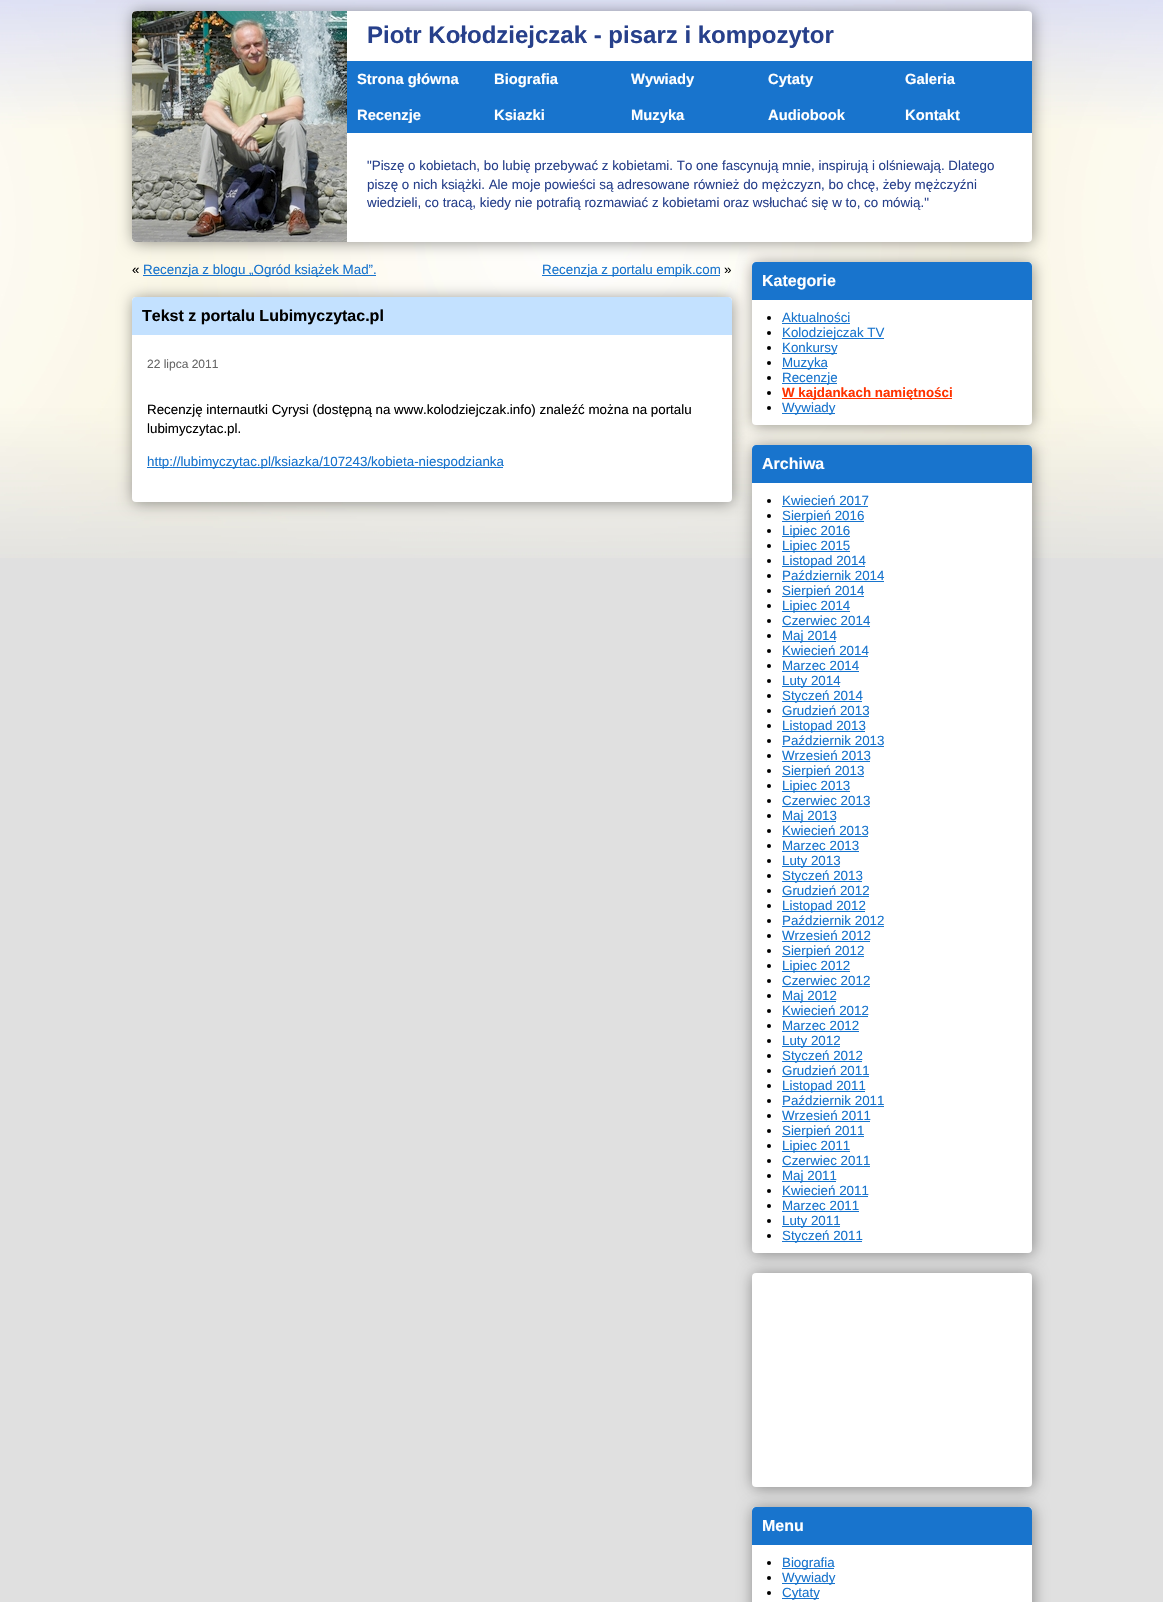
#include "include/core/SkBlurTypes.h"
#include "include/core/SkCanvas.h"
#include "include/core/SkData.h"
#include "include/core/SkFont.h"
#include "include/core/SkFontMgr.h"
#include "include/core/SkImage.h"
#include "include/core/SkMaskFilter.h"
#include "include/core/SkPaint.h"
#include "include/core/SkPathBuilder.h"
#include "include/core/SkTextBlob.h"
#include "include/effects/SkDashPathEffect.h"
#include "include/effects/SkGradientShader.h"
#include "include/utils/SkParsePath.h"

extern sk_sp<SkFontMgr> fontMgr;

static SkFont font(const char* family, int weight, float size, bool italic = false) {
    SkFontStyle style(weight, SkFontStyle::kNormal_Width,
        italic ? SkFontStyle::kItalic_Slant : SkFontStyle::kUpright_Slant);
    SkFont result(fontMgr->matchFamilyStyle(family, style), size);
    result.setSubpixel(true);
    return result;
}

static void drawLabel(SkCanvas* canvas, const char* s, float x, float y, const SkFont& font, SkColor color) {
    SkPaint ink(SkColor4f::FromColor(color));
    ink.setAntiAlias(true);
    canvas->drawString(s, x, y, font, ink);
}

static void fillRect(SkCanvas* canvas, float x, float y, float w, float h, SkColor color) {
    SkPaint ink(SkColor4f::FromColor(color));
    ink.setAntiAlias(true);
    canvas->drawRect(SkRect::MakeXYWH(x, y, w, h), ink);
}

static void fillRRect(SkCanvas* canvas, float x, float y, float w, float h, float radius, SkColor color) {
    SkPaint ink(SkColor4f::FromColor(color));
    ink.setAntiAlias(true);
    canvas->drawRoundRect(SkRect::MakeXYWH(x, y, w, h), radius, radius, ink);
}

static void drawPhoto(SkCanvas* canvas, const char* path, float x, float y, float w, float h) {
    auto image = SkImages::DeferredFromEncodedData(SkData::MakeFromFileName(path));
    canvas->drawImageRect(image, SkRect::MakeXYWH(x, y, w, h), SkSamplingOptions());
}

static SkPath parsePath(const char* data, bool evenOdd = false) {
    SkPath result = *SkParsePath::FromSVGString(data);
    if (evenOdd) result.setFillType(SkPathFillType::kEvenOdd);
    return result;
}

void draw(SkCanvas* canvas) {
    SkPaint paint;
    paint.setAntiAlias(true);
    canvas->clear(0xFFE0E0E0);
    drawPhoto(canvas, "assets/img1.png", 0, 0, 1163, 558);
    fillRect(canvas, 143, 275, 233, 1, 0xFF1874CD);
    fillRect(canvas, 542, 275, 178, 1, 0xFF1874CD);
    paint.setColor(0x66000000);
    paint.setMaskFilter(SkMaskFilter::MakeBlur(kNormal_SkBlurStyle, 7.5f));
    canvas->drawRoundRect(SkRect::MakeXYWH(133, 298, 600, 205), 4, 4, paint);
    paint.setMaskFilter(nullptr);
    fillRRect(canvas, 132, 297, 600, 205, 4, 0xFFFFFFFF);
    paint.setColor(0xFFC3E1FF);
    canvas->drawPath(parsePath("M136 297H728C730 297 732 299 732 301V335H132V301C132 299 134 297 136 297Z"), paint);
    paint.setColor(0x66000000);
    paint.setMaskFilter(SkMaskFilter::MakeBlur(kNormal_SkBlurStyle, 7.5f));
    canvas->drawRoundRect(SkRect::MakeXYWH(753, 263, 280, 163), 4, 4, paint);
    paint.setMaskFilter(nullptr);
    fillRRect(canvas, 752, 262, 280, 163, 4, 0xFFFFFFFF);
    paint.setColor(0xFF1874CD);
    canvas->drawPath(parsePath("M756 262H1028C1030 262 1032 264 1032 266V300H752V266C752 264 754 262 756 262Z"), paint);
    paint.setColor(0x66000000);
    paint.setMaskFilter(SkMaskFilter::MakeBlur(kNormal_SkBlurStyle, 7.5f));
    canvas->drawRoundRect(SkRect::MakeXYWH(133, 12, 900, 231), 4, 4, paint);
    paint.setMaskFilter(nullptr);
    fillRRect(canvas, 132, 11, 900, 231, 4, 0xFFFFFFFF);
    drawPhoto(canvas, "assets/img2.png", 132, 11, 215, 231);
    SkFont font1 = font("Liberation Sans", 700, 24);
    drawLabel(canvas, "Piotr Kołodziejczak - pisarz i kompozytor", 367, 43, font1, 0xFF27408B);
    fillRect(canvas, 347, 61, 685, 72, 0xFF1874CD);
    SkFont font2 = font("Liberation Sans", 700, 14.75f);
    drawLabel(canvas, "Strona główna", 357, 84, font2, 0xFFFFFFFF);
    drawLabel(canvas, "Biografia", 494, 84, font2, 0xFFFFFFFF);
    drawLabel(canvas, "Wywiady", 631, 84, font2, 0xFFFFFFFF);
    drawLabel(canvas, "Cytaty", 768, 84, font2, 0xFFFFFFFF);
    drawLabel(canvas, "Galeria", 905, 84, font2, 0xFFFFFFFF);
    drawLabel(canvas, "Recenzje", 357, 120, font2, 0xFFFFFFFF);
    drawLabel(canvas, "Ksiazki", 494, 120, font2, 0xFFFFFFFF);
    drawLabel(canvas, "Muzyka", 631, 120, font2, 0xFFFFFFFF);
    drawLabel(canvas, "Audiobook", 768, 120, font2, 0xFFFFFFFF);
    drawLabel(canvas, "Kontakt", 905, 120, font2, 0xFFFFFFFF);
    SkFont font3 = font("Liberation Sans", 400, 13.35f);
    drawLabel(canvas, "\"Piszę o kobietach, bo lubię przebywać z kobietami. To one fascynują mnie, inspirują i olśniewają. Dlatego", 367, 170, font3, 0xFF27408B);
    drawLabel(canvas, "piszę o nich książki. Ale moje powieści są adresowane również do mężczyzn, bo chcę, żeby mężczyźni", 367, 189, font3, 0xFF27408B);
    drawLabel(canvas, "wiedzieli, co tracą, kiedy nie potrafią rozmawiać z kobietami oraz wsłuchać się w to, co mówią.\"", 367, 207, font3, 0xFF27408B);
    drawLabel(canvas, "«", 132, 274, font3, 0xFF000000);
    drawLabel(canvas, "Recenzja z blogu „Ogród książek Mad”.", 143, 274, font3, 0xFF1874CD);
    drawLabel(canvas, "Recenzja z portalu empik.com", 542, 274, font3, 0xFF1874CD);
    drawLabel(canvas, "»", 724, 274, font3, 0xFF000000);
    SkFont font4 = font("Liberation Sans", 700, 16);
    drawLabel(canvas, "Tekst z portalu Lubimyczytac.pl", 142, 321, font4, 0xFF000000);
    SkFont font5 = font("Liberation Sans", 400, 12);
    drawLabel(canvas, "22 lipca 2011", 147, 368, font5, 0xFF666666);
    drawLabel(canvas, "Recenzję internautki Cyrysi (dostępną na www.kolodziejczak.info) znaleźć można na portalu", 147, 414, font3, 0xFF000000);
    drawLabel(canvas, "lubimyczytac.pl.", 147, 433, font3, 0xFF000000);
    fillRect(canvas, 147, 467, 356, 1, 0xFF1874CD);
    drawLabel(canvas, "http://lubimyczytac.pl/ksiazka/107243/kobieta-niespodzianka", 147, 466, font3, 0xFF1874CD);
    drawLabel(canvas, "Kategorie", 762, 286, font4, 0xFFFFFFFF);
    paint.setColor(0xFF000000);
    canvas->drawCircle(769, 318, 2, paint);
    drawLabel(canvas, "Aktualności", 782, 322, font3, 0xFF1874CD);
    fillRect(canvas, 782, 323, 68, 1, 0xFF1874CD);
    canvas->drawCircle(769, 333, 2, paint);
    fillRect(canvas, 782, 338, 102, 1, 0xFF1874CD);
    drawLabel(canvas, "Kolodziejczak TV", 782, 337, font3, 0xFF1874CD);
    canvas->drawCircle(769, 348, 2, paint);
    fillRect(canvas, 782, 353, 55, 1, 0xFF1874CD);
    drawLabel(canvas, "Konkursy", 782, 352, font3, 0xFF1874CD);
    canvas->drawCircle(769, 363, 2, paint);
    fillRect(canvas, 782, 368, 45, 1, 0xFF1874CD);
    drawLabel(canvas, "Muzyka", 782, 367, font3, 0xFF1874CD);
    canvas->drawCircle(769, 378, 2, paint);
    fillRect(canvas, 782, 383, 55, 1, 0xFF1874CD);
    drawLabel(canvas, "Recenzje", 782, 382, font3, 0xFF1874CD);
    canvas->drawCircle(769, 393, 2, paint);
    fillRect(canvas, 782, 398, 170, 1, 0xFFFF3300);
    SkFont font6 = font("Liberation Sans", 700, 13.35f);
    drawLabel(canvas, "W kajdankach namiętności", 782, 397, font6, 0xFFFF3300);
    canvas->drawCircle(769, 408, 2, paint);
    fillRect(canvas, 782, 413, 53, 1, 0xFF1874CD);
    drawLabel(canvas, "Wywiady", 782, 412, font3, 0xFF1874CD);
    paint.setColor(0x66000000);
    paint.setMaskFilter(SkMaskFilter::MakeBlur(kNormal_SkBlurStyle, 7.5f));
    canvas->drawRoundRect(SkRect::MakeXYWH(753, 446, 280, 808), 4, 4, paint);
    paint.setMaskFilter(nullptr);
    fillRRect(canvas, 752, 445, 280, 808, 4, 0xFFFFFFFF);
    paint.setColor(0xFF1874CD);
    canvas->drawPath(parsePath("M756 445H1028C1030 445 1032 447 1032 449V483H752V449C752 447 754 445 756 445Z"), paint);
    drawLabel(canvas, "Archiwa", 762, 469, font4, 0xFFFFFFFF);
    paint.setColor(0xFF000000);
    canvas->drawCircle(769, 501, 2, paint);
    drawLabel(canvas, "Kwiecień 2017", 782, 505, font3, 0xFF1874CD);
    fillRect(canvas, 782, 506, 86, 1, 0xFF1874CD);
    canvas->drawCircle(769, 516, 2, paint);
    fillRect(canvas, 782, 521, 82, 1, 0xFF1874CD);
    drawLabel(canvas, "Sierpień 2016", 782, 520, font3, 0xFF1874CD);
    canvas->drawCircle(769, 531, 2, paint);
    fillRect(canvas, 782, 536, 68, 1, 0xFF1874CD);
    drawLabel(canvas, "Lipiec 2016", 782, 535, font3, 0xFF1874CD);
    canvas->drawCircle(769, 546, 2, paint);
    fillRect(canvas, 782, 551, 68, 1, 0xFF1874CD);
    drawLabel(canvas, "Lipiec 2015", 782, 550, font3, 0xFF1874CD);
    canvas->drawCircle(769, 561, 2, paint);
    fillRect(canvas, 782, 566, 83, 1, 0xFF1874CD);
    drawLabel(canvas, "Listopad 2014", 782, 565, font3, 0xFF1874CD);
    canvas->drawCircle(769, 576, 2, paint);
    drawLabel(canvas, "Październik 2014", 782, 580, font3, 0xFF1874CD);
    fillRect(canvas, 782, 581, 102, 1, 0xFF1874CD);
    canvas->drawCircle(769, 591, 2, paint);
    fillRect(canvas, 782, 596, 82, 1, 0xFF1874CD);
    drawLabel(canvas, "Sierpień 2014", 782, 595, font3, 0xFF1874CD);
    canvas->drawCircle(769, 606, 2, paint);
    fillRect(canvas, 782, 611, 68, 1, 0xFF1874CD);
    drawLabel(canvas, "Lipiec 2014", 782, 610, font3, 0xFF1874CD);
    canvas->drawCircle(769, 621, 2, paint);
    drawLabel(canvas, "Czerwiec 2014", 782, 625, font3, 0xFF1874CD);
    fillRect(canvas, 782, 626, 88, 1, 0xFF1874CD);
    canvas->drawCircle(769, 636, 2, paint);
    fillRect(canvas, 782, 641, 54, 1, 0xFF1874CD);
    drawLabel(canvas, "Maj 2014", 782, 640, font3, 0xFF1874CD);
    canvas->drawCircle(769, 651, 2, paint);
    drawLabel(canvas, "Kwiecień 2014", 782, 655, font3, 0xFF1874CD);
    fillRect(canvas, 782, 656, 86, 1, 0xFF1874CD);
    canvas->drawCircle(769, 666, 2, paint);
    drawLabel(canvas, "Marzec 2014", 782, 670, font3, 0xFF1874CD);
    fillRect(canvas, 782, 671, 77, 1, 0xFF1874CD);
    canvas->drawCircle(769, 681, 2, paint);
    fillRect(canvas, 782, 686, 58, 1, 0xFF1874CD);
    drawLabel(canvas, "Luty 2014", 782, 685, font3, 0xFF1874CD);
    canvas->drawCircle(769, 696, 2, paint);
    fillRect(canvas, 782, 701, 80, 1, 0xFF1874CD);
    drawLabel(canvas, "Styczeń 2014", 782, 700, font3, 0xFF1874CD);
    canvas->drawCircle(769, 711, 2, paint);
    drawLabel(canvas, "Grudzień 2013", 782, 715, font3, 0xFF1874CD);
    fillRect(canvas, 782, 716, 87, 1, 0xFF1874CD);
    canvas->drawCircle(769, 726, 2, paint);
    fillRect(canvas, 782, 731, 83, 1, 0xFF1874CD);
    drawLabel(canvas, "Listopad 2013", 782, 730, font3, 0xFF1874CD);
    canvas->drawCircle(769, 741, 2, paint);
    drawLabel(canvas, "Październik 2013", 782, 745, font3, 0xFF1874CD);
    fillRect(canvas, 782, 746, 102, 1, 0xFF1874CD);
    canvas->drawCircle(769, 756, 2, paint);
    drawLabel(canvas, "Wrzesień 2013", 782, 760, font3, 0xFF1874CD);
    fillRect(canvas, 782, 761, 88, 1, 0xFF1874CD);
    canvas->drawCircle(769, 771, 2, paint);
    fillRect(canvas, 782, 776, 82, 1, 0xFF1874CD);
    drawLabel(canvas, "Sierpień 2013", 782, 775, font3, 0xFF1874CD);
    canvas->drawCircle(769, 786, 2, paint);
    fillRect(canvas, 782, 791, 68, 1, 0xFF1874CD);
    drawLabel(canvas, "Lipiec 2013", 782, 790, font3, 0xFF1874CD);
    canvas->drawCircle(769, 801, 2, paint);
    drawLabel(canvas, "Czerwiec 2013", 782, 805, font3, 0xFF1874CD);
    fillRect(canvas, 782, 806, 88, 1, 0xFF1874CD);
    canvas->drawCircle(769, 816, 2, paint);
    fillRect(canvas, 782, 821, 54, 1, 0xFF1874CD);
    drawLabel(canvas, "Maj 2013", 782, 820, font3, 0xFF1874CD);
    canvas->drawCircle(769, 831, 2, paint);
    drawLabel(canvas, "Kwiecień 2013", 782, 835, font3, 0xFF1874CD);
    fillRect(canvas, 782, 836, 86, 1, 0xFF1874CD);
    canvas->drawCircle(769, 846, 2, paint);
    drawLabel(canvas, "Marzec 2013", 782, 850, font3, 0xFF1874CD);
    fillRect(canvas, 782, 851, 77, 1, 0xFF1874CD);
    canvas->drawCircle(769, 861, 2, paint);
    fillRect(canvas, 782, 866, 58, 1, 0xFF1874CD);
    drawLabel(canvas, "Luty 2013", 782, 865, font3, 0xFF1874CD);
    canvas->drawCircle(769, 876, 2, paint);
    fillRect(canvas, 782, 881, 80, 1, 0xFF1874CD);
    drawLabel(canvas, "Styczeń 2013", 782, 880, font3, 0xFF1874CD);
    canvas->drawCircle(769, 891, 2, paint);
    drawLabel(canvas, "Grudzień 2012", 782, 895, font3, 0xFF1874CD);
    fillRect(canvas, 782, 896, 87, 1, 0xFF1874CD);
    canvas->drawCircle(769, 906, 2, paint);
    fillRect(canvas, 782, 911, 83, 1, 0xFF1874CD);
    drawLabel(canvas, "Listopad 2012", 782, 910, font3, 0xFF1874CD);
    canvas->drawCircle(769, 921, 2, paint);
    drawLabel(canvas, "Październik 2012", 782, 925, font3, 0xFF1874CD);
    fillRect(canvas, 782, 926, 102, 1, 0xFF1874CD);
    canvas->drawCircle(769, 936, 2, paint);
    drawLabel(canvas, "Wrzesień 2012", 782, 940, font3, 0xFF1874CD);
    fillRect(canvas, 782, 941, 88, 1, 0xFF1874CD);
    canvas->drawCircle(769, 951, 2, paint);
    fillRect(canvas, 782, 956, 82, 1, 0xFF1874CD);
    drawLabel(canvas, "Sierpień 2012", 782, 955, font3, 0xFF1874CD);
    canvas->drawCircle(769, 966, 2, paint);
    fillRect(canvas, 782, 971, 68, 1, 0xFF1874CD);
    drawLabel(canvas, "Lipiec 2012", 782, 970, font3, 0xFF1874CD);
    canvas->drawCircle(769, 981, 2, paint);
    drawLabel(canvas, "Czerwiec 2012", 782, 985, font3, 0xFF1874CD);
    fillRect(canvas, 782, 986, 88, 1, 0xFF1874CD);
    canvas->drawCircle(769, 996, 2, paint);
    fillRect(canvas, 782, 1001, 54, 1, 0xFF1874CD);
    drawLabel(canvas, "Maj 2012", 782, 1000, font3, 0xFF1874CD);
    canvas->drawCircle(769, 1011, 2, paint);
    drawLabel(canvas, "Kwiecień 2012", 782, 1015, font3, 0xFF1874CD);
    fillRect(canvas, 782, 1016, 86, 1, 0xFF1874CD);
    canvas->drawCircle(769, 1026, 2, paint);
    drawLabel(canvas, "Marzec 2012", 782, 1030, font3, 0xFF1874CD);
    fillRect(canvas, 782, 1031, 77, 1, 0xFF1874CD);
    canvas->drawCircle(769, 1041, 2, paint);
    fillRect(canvas, 782, 1046, 58, 1, 0xFF1874CD);
    drawLabel(canvas, "Luty 2012", 782, 1045, font3, 0xFF1874CD);
    canvas->drawCircle(769, 1056, 2, paint);
    fillRect(canvas, 782, 1061, 80, 1, 0xFF1874CD);
    drawLabel(canvas, "Styczeń 2012", 782, 1060, font3, 0xFF1874CD);
    canvas->drawCircle(769, 1071, 2, paint);
    drawLabel(canvas, "Grudzień 2011", 782, 1075, font3, 0xFF1874CD);
    fillRect(canvas, 782, 1076, 87, 1, 0xFF1874CD);
    canvas->drawCircle(769, 1086, 2, paint);
    fillRect(canvas, 782, 1091, 83, 1, 0xFF1874CD);
    drawLabel(canvas, "Listopad 2011", 782, 1090, font3, 0xFF1874CD);
    canvas->drawCircle(769, 1101, 2, paint);
    drawLabel(canvas, "Październik 2011", 782, 1105, font3, 0xFF1874CD);
    fillRect(canvas, 782, 1106, 102, 1, 0xFF1874CD);
    canvas->drawCircle(769, 1116, 2, paint);
    drawLabel(canvas, "Wrzesień 2011", 782, 1120, font3, 0xFF1874CD);
    fillRect(canvas, 782, 1121, 88, 1, 0xFF1874CD);
    canvas->drawCircle(769, 1131, 2, paint);
    fillRect(canvas, 782, 1136, 82, 1, 0xFF1874CD);
    drawLabel(canvas, "Sierpień 2011", 782, 1135, font3, 0xFF1874CD);
    canvas->drawCircle(769, 1146, 2, paint);
    fillRect(canvas, 782, 1151, 68, 1, 0xFF1874CD);
    drawLabel(canvas, "Lipiec 2011", 782, 1150, font3, 0xFF1874CD);
    canvas->drawCircle(769, 1161, 2, paint);
    drawLabel(canvas, "Czerwiec 2011", 782, 1165, font3, 0xFF1874CD);
    fillRect(canvas, 782, 1166, 88, 1, 0xFF1874CD);
    canvas->drawCircle(769, 1176, 2, paint);
    fillRect(canvas, 782, 1181, 54, 1, 0xFF1874CD);
    drawLabel(canvas, "Maj 2011", 782, 1180, font3, 0xFF1874CD);
    canvas->drawCircle(769, 1191, 2, paint);
    drawLabel(canvas, "Kwiecień 2011", 782, 1195, font3, 0xFF1874CD);
    fillRect(canvas, 782, 1196, 86, 1, 0xFF1874CD);
    canvas->drawCircle(769, 1206, 2, paint);
    drawLabel(canvas, "Marzec 2011", 782, 1210, font3, 0xFF1874CD);
    fillRect(canvas, 782, 1211, 77, 1, 0xFF1874CD);
    canvas->drawCircle(769, 1221, 2, paint);
    fillRect(canvas, 782, 1226, 58, 1, 0xFF1874CD);
    drawLabel(canvas, "Luty 2011", 782, 1225, font3, 0xFF1874CD);
    canvas->drawCircle(769, 1236, 2, paint);
    fillRect(canvas, 782, 1241, 80, 1, 0xFF1874CD);
    drawLabel(canvas, "Styczeń 2011", 782, 1240, font3, 0xFF1874CD);
    paint.setColor(0x66000000);
    paint.setMaskFilter(SkMaskFilter::MakeBlur(kNormal_SkBlurStyle, 7.5f));
    canvas->drawRoundRect(SkRect::MakeXYWH(753, 1274, 280, 214), 4, 4, paint);
    paint.setMaskFilter(nullptr);
    fillRRect(canvas, 752, 1273, 280, 214, 4, 0xFFFFFFFF);
    paint.setMaskFilter(SkMaskFilter::MakeBlur(kNormal_SkBlurStyle, 7.5f));
    canvas->drawRoundRect(SkRect::MakeXYWH(753, 1508, 280, 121), 4, 4, paint);
    paint.setMaskFilter(nullptr);
    fillRRect(canvas, 752, 1507, 280, 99, 4, 0xFFFFFFFF);
    paint.setColor(0xFF1874CD);
    canvas->drawPath(parsePath("M756 1507H1028C1030 1507 1032 1509 1032 1511V1545H752V1511C752 1509 754 1507 756 1507Z"), paint);
    drawLabel(canvas, "Menu", 762, 1531, font4, 0xFFFFFFFF);
    paint.setColor(0xFF000000);
    canvas->drawCircle(769, 1563, 2, paint);
    fillRect(canvas, 782, 1568, 52, 1, 0xFF1874CD);
    drawLabel(canvas, "Biografia", 782, 1567, font3, 0xFF1874CD);
    canvas->drawCircle(769, 1578, 2, paint);
    fillRect(canvas, 782, 1583, 53, 1, 0xFF1874CD);
    drawLabel(canvas, "Wywiady", 782, 1582, font3, 0xFF1874CD);
    canvas->drawCircle(769, 1593, 2, paint);
    fillRect(canvas, 782, 1598, 37, 1, 0xFF1874CD);
    drawLabel(canvas, "Cytaty", 782, 1597, font3, 0xFF1874CD);
}
